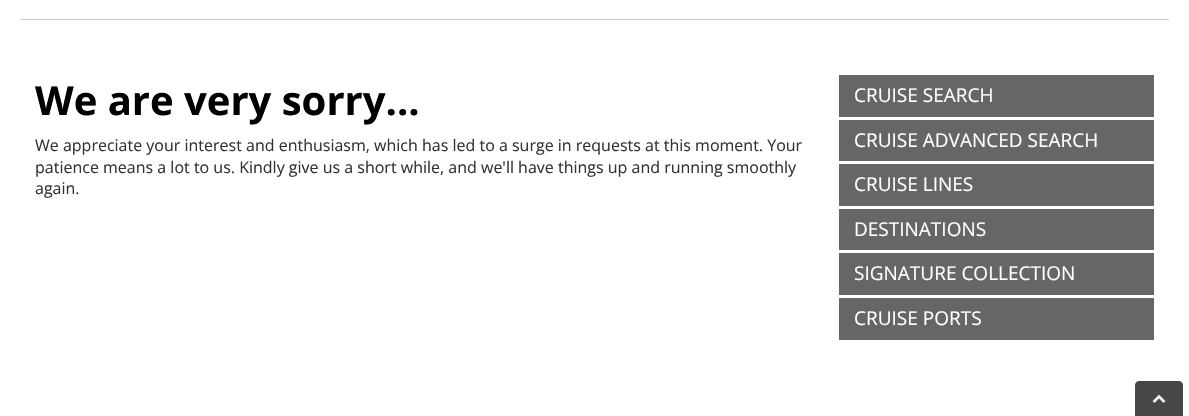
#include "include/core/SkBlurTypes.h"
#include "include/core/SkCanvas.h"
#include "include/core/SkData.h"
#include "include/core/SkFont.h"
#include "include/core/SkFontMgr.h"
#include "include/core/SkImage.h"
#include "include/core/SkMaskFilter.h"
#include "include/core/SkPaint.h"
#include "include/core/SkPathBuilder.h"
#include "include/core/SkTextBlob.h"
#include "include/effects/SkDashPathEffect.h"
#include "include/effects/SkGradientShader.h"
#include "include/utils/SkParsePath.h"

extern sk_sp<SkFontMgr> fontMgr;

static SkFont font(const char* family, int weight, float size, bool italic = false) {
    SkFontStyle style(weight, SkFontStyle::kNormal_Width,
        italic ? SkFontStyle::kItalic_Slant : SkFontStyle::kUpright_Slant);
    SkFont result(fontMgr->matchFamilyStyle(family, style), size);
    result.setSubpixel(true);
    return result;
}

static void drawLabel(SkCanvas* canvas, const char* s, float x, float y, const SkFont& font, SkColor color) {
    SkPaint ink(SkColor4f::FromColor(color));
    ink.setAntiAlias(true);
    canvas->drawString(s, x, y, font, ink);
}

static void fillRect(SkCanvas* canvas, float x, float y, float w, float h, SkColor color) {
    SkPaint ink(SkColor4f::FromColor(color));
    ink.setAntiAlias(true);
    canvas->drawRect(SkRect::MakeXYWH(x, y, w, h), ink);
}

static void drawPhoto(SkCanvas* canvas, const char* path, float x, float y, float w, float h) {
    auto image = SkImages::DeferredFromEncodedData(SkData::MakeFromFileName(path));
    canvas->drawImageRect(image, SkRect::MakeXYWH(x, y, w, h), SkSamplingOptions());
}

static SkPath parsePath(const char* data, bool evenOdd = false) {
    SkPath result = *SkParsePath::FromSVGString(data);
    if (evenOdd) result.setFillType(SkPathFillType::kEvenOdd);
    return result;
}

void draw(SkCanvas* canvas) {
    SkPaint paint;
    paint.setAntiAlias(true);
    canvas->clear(0xFFFFFFFF);
    fillRect(canvas, 20, 19, 1149, 1, 0xFFCACACA);
    SkFont font1 = font("Open Sans", 700, 40);
    drawLabel(canvas, "We are very sorry...", 35, 115, font1, 0xFF000000);
    SkFont font2 = font("Open Sans", 400, 16);
    drawLabel(canvas, "We appreciate your interest and enthusiasm, which has led to a surge in requests at this moment. Your", 35, 151, font2, 0xFF333333);
    drawLabel(canvas, "patience means a lot to us. Kindly give us a short while, and we'll have things up and running smoothly", 35, 173, font2, 0xFF333333);
    drawLabel(canvas, "again.", 35, 194, font2, 0xFF333333);
    fillRect(canvas, 839, 75, 315, 42, 0xFF666666);
    SkFont font3 = font("Open Sans", 400, 19);
    drawLabel(canvas, "CRUISE SEARCH", 854, 102, font3, 0xFFFFFFFF);
    fillRect(canvas, 839, 120, 315, 41, 0xFF666666);
    drawLabel(canvas, "CRUISE ADVANCED SEARCH", 854, 147, font3, 0xFFFFFFFF);
    fillRect(canvas, 839, 164, 315, 42, 0xFF666666);
    drawLabel(canvas, "CRUISE LINES", 854, 191, font3, 0xFFFFFFFF);
    fillRect(canvas, 839, 209, 315, 41, 0xFF666666);
    drawLabel(canvas, "DESTINATIONS", 854, 236, font3, 0xFFFFFFFF);
    fillRect(canvas, 839, 253, 315, 42, 0xFF666666);
    drawLabel(canvas, "SIGNATURE COLLECTION", 854, 280, font3, 0xFFFFFFFF);
    fillRect(canvas, 839, 298, 315, 42, 0xFF666666);
    drawLabel(canvas, "CRUISE PORTS", 854, 325, font3, 0xFFFFFFFF);
    paint.setColor(0xFF474747);
    canvas->drawPath(parsePath("M1139 381H1179C1181 381 1183 383 1183 385V416H1135V385C1135 383 1137 381 1139 381Z"), paint);
    drawPhoto(canvas, "assets/img1.png", 1152, 394, 14, 9);
}
